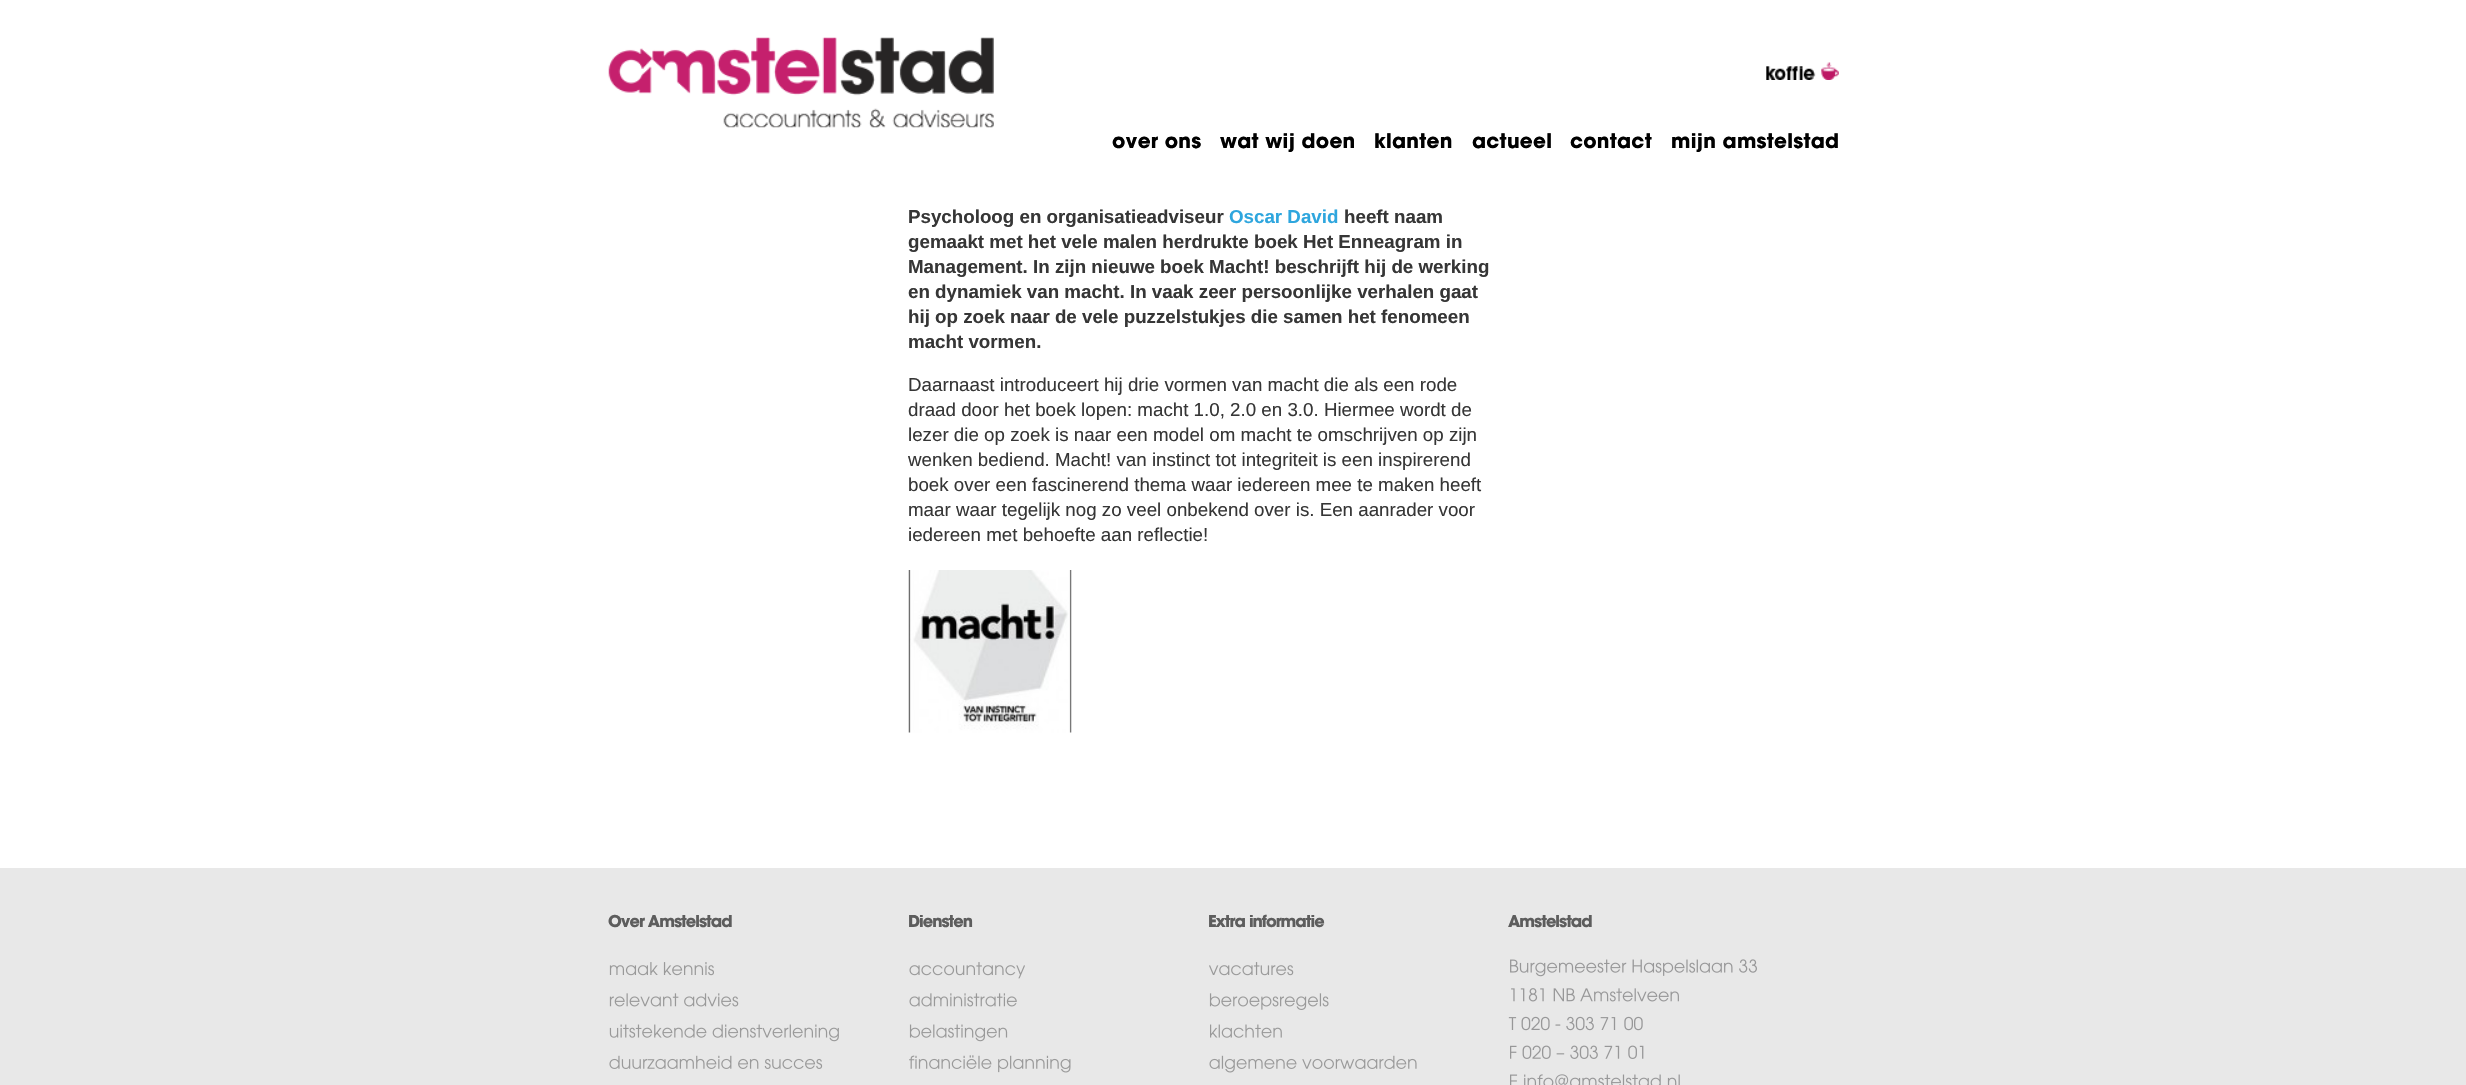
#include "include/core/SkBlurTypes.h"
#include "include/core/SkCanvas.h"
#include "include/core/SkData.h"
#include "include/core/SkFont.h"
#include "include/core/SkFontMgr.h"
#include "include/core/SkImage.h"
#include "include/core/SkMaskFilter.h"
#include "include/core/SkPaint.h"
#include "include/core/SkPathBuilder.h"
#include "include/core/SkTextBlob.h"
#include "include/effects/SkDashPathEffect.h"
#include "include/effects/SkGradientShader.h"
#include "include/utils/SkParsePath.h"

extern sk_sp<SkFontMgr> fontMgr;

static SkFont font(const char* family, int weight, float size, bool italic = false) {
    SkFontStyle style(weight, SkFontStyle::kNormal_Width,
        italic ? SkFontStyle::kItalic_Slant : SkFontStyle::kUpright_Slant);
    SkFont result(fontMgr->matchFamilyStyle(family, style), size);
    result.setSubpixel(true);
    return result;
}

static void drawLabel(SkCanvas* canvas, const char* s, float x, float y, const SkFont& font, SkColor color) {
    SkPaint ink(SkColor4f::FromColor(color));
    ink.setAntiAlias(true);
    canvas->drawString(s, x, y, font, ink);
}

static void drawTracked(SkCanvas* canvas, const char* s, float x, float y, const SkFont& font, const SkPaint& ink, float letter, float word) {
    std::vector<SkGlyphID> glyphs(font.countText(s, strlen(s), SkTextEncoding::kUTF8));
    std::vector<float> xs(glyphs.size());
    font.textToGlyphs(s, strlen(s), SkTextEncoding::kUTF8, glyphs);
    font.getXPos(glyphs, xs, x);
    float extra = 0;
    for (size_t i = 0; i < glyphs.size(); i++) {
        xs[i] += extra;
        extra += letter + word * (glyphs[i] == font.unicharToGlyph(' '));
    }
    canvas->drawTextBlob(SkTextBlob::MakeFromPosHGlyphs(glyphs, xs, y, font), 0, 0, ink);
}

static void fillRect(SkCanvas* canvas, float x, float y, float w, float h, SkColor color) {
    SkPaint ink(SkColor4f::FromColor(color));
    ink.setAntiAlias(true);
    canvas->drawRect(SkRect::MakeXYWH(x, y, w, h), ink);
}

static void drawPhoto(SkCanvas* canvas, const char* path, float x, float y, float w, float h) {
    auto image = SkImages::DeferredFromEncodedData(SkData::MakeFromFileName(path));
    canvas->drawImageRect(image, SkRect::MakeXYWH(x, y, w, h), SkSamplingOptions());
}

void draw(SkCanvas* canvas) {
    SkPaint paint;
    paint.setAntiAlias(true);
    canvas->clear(0xFFFFFFFF);
    drawPhoto(canvas, "assets/img1.png", 608, 37, 386, 91);
    drawPhoto(canvas, "assets/img2.png", 1766, 62, 73, 18);
    SkFont font1 = font("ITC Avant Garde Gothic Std", 700, 20);
    paint.setColor(0xFF000000);
    drawTracked(canvas, "over ons", 1112, 148, font1, paint, 0.25f, 0);
    drawTracked(canvas, "wat wij doen", 1220, 148, font1, paint, 0.25f, 0);
    drawTracked(canvas, "klanten", 1374, 148, font1, paint, 0.25f, 0);
    drawTracked(canvas, "actueel", 1472, 148, font1, paint, 0.25f, 0);
    drawTracked(canvas, "contact", 1570, 148, font1, paint, 0.25f, 0);
    drawTracked(canvas, "mijn amstelstad", 1671, 148, font1, paint, 0.25f, 0);
    SkFont font2 = font("Liberation Sans", 700, 18.75f);
    drawLabel(canvas, "Psycholoog en organisatieadviseur", 908, 223, font2, 0xFF363636);
    drawLabel(canvas, "Oscar David", 1229, 223, font2, 0xFF2EA6DE);
    drawLabel(canvas, "heeft naam", 1344, 223, font2, 0xFF363636);
    drawLabel(canvas, "gemaakt met het vele malen herdrukte boek Het Enneagram in", 908, 248, font2, 0xFF363636);
    drawLabel(canvas, "Management. In zijn nieuwe boek Macht! beschrijft hij de werking", 908, 273, font2, 0xFF363636);
    drawLabel(canvas, "en dynamiek van macht. In vaak zeer persoonlijke verhalen gaat", 908, 298, font2, 0xFF363636);
    drawLabel(canvas, "hij op zoek naar de vele puzzelstukjes die samen het fenomeen", 908, 323, font2, 0xFF363636);
    drawLabel(canvas, "macht vormen.", 908, 348, font2, 0xFF363636);
    SkFont font3 = font("Liberation Sans", 400, 18.75f);
    drawLabel(canvas, "Daarnaast introduceert hij drie vormen van macht die als een rode", 908, 391, font3, 0xFF363636);
    drawLabel(canvas, "draad door het boek lopen: macht 1.0, 2.0 en 3.0. Hiermee wordt de", 908, 416, font3, 0xFF363636);
    drawLabel(canvas, "lezer die op zoek is naar een model om macht te omschrijven op zijn", 908, 441, font3, 0xFF363636);
    drawLabel(canvas, "wenken bediend. Macht! van instinct tot integriteit is een inspirerend", 908, 466, font3, 0xFF363636);
    drawLabel(canvas, "boek over een fascinerend thema waar iedereen mee te maken heeft", 908, 491, font3, 0xFF363636);
    drawLabel(canvas, "maar waar tegelijk nog zo veel onbekend over is. Een aanrader voor", 908, 516, font3, 0xFF363636);
    drawLabel(canvas, "iedereen met behoefte aan reflectie!", 908, 541, font3, 0xFF363636);
    drawPhoto(canvas, "assets/img3.png", 908, 570, 164, 163);
    fillRect(canvas, 0, 868, 2466, 217, 0xFFE8E8E8);
    SkFont font4 = font("ITC Avant Garde Gothic Std", 700, 16.25f);
    paint.setColor(0xFF5D5D5D);
    drawTracked(canvas, "Over Amstelstad", 608, 927, font4, paint, -1, 0);
    drawPhoto(canvas, "assets/img4.png", 609, 962, 105, 14);
    drawPhoto(canvas, "assets/img5.png", 609, 993, 130, 14);
    drawPhoto(canvas, "assets/img6.png", 609, 1024, 230, 18);
    drawPhoto(canvas, "assets/img7.png", 609, 1055, 214, 14);
    drawTracked(canvas, "Diensten", 908, 927, font4, paint, -1, 0);
    drawPhoto(canvas, "assets/img8.png", 909, 962, 116, 17);
    drawPhoto(canvas, "assets/img9.png", 909, 993, 108, 14);
    drawPhoto(canvas, "assets/img10.png", 909, 1024, 99, 18);
    drawPhoto(canvas, "assets/img11.png", 909, 1055, 162, 18);
    drawTracked(canvas, "Extra informatie", 1208, 927, font4, paint, -1, 0);
    drawPhoto(canvas, "assets/img12.png", 1209, 962, 85, 14);
    drawPhoto(canvas, "assets/img13.png", 1209, 993, 120, 17);
    drawPhoto(canvas, "assets/img14.png", 1210, 1024, 72, 14);
    drawPhoto(canvas, "assets/img15.png", 1209, 1055, 208, 18);
    drawTracked(canvas, "Amstelstad", 1508, 927, font4, paint, -1, 0);
    drawPhoto(canvas, "assets/img16.png", 1510, 959, 247, 18);
    drawPhoto(canvas, "assets/img17.png", 1511, 988, 64, 14);
    drawPhoto(canvas, "assets/img18.png", 1580, 988, 99, 14);
    drawPhoto(canvas, "assets/img19.png", 1508, 1016, 135, 15);
    drawPhoto(canvas, "assets/img20.png", 1510, 1045, 134, 14);
    drawPhoto(canvas, "assets/img21.png", 1510, 1074, 170, 11);
}
